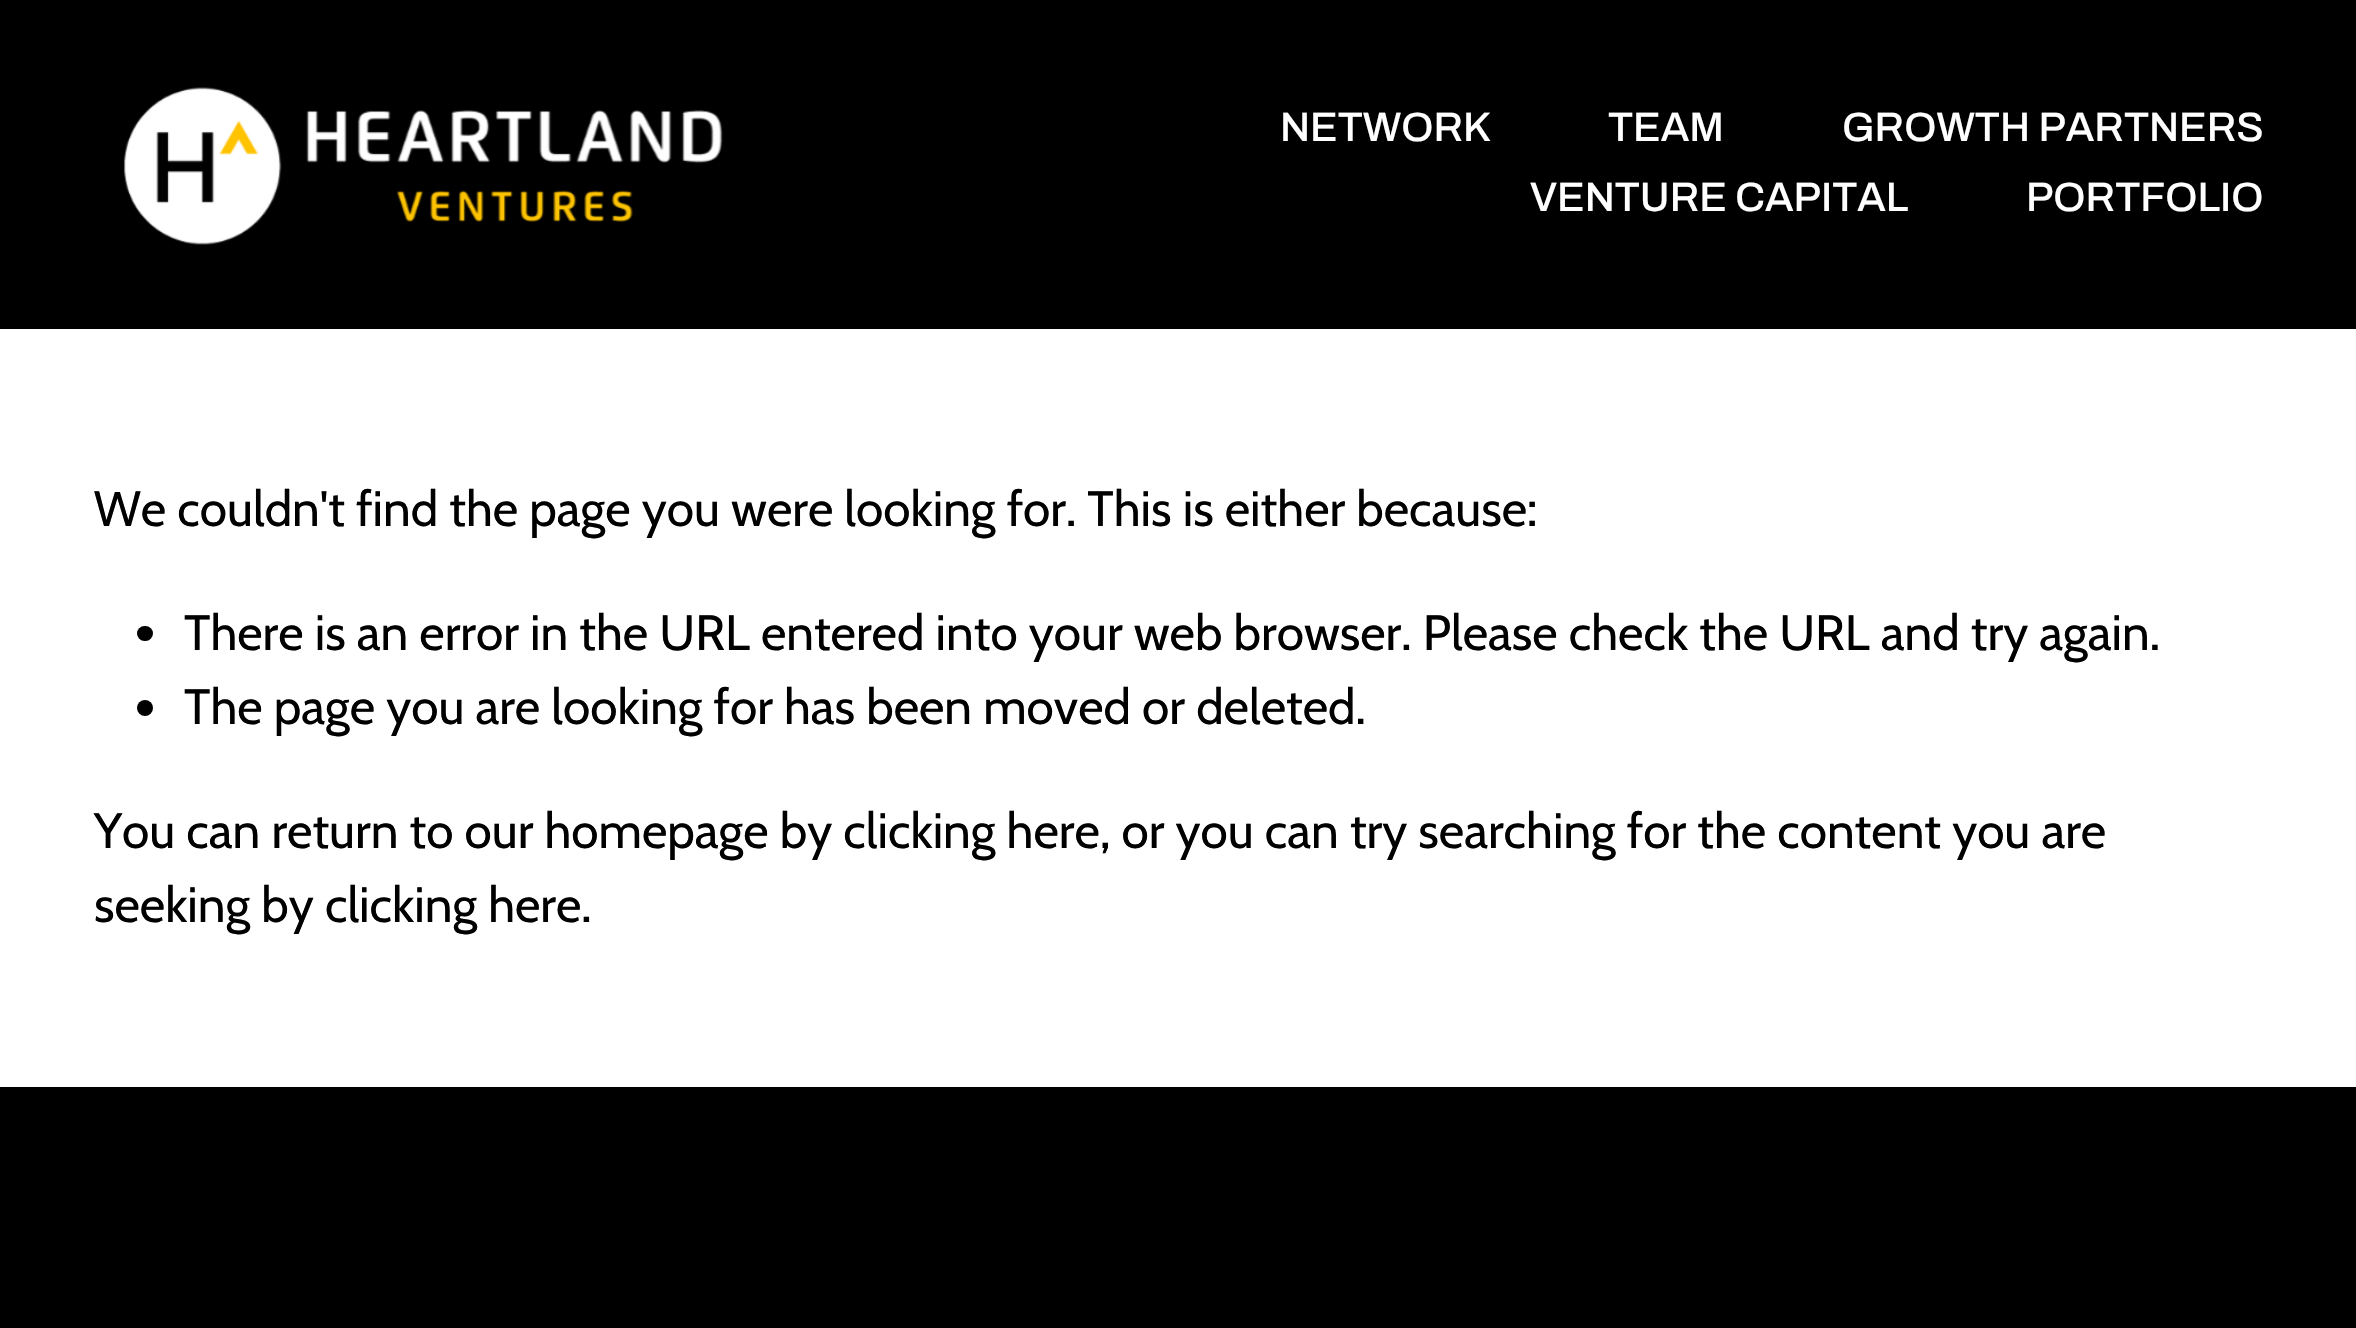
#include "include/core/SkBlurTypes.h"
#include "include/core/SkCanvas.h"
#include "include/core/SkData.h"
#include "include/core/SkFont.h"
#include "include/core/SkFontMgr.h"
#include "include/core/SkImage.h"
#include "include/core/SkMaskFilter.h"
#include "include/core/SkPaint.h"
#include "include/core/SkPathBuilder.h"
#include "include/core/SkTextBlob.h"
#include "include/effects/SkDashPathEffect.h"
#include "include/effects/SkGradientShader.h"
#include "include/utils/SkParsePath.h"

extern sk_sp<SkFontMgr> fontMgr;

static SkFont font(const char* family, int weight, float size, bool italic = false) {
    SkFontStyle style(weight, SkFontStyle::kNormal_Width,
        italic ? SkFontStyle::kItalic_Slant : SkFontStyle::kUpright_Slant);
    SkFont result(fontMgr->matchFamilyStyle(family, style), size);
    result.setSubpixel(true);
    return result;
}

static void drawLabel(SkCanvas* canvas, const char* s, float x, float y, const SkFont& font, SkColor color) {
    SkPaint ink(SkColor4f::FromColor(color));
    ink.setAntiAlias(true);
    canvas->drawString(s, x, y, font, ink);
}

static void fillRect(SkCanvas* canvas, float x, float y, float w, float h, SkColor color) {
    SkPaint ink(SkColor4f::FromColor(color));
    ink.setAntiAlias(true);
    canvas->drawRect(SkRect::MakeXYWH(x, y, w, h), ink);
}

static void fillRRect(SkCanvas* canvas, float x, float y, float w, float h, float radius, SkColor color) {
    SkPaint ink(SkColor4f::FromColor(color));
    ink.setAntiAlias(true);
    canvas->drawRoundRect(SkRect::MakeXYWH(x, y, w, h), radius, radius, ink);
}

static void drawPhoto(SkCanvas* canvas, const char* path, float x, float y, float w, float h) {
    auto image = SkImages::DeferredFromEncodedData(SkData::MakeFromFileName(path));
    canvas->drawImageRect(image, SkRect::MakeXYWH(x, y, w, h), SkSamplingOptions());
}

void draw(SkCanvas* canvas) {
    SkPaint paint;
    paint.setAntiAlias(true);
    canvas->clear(0xFFFFFFFF);
    fillRect(canvas, 0, 0, 2356, 329, 0xFF000000);
    drawPhoto(canvas, "assets/img1.png", 123, 87, 600, 158);
    SkFont font1 = font("Archivo", 500, 41);
    drawLabel(canvas, "NETWORK", 1280, 141, font1, 0xFFFFFFFF);
    drawLabel(canvas, "TEAM", 1608, 141, font1, 0xFFFFFFFF);
    drawLabel(canvas, "GROWTH PARTNERS", 1842, 141, font1, 0xFFFFFFFF);
    drawLabel(canvas, "VENTURE CAPITAL", 1530, 211, font1, 0xFFFFFFFF);
    drawLabel(canvas, "PORTFOLIO", 2026, 211, font1, 0xFFFFFFFF);
    SkFont font2 = font("Cabin", 400, 49.5f);
    drawLabel(canvas, "We couldn't find the page you were looking for. This is either because:", 94, 526, font2, 0xFF000000);
    fillRRect(canvas, 137, 626, 16, 15, 7.5f, 0xFF000000);
    drawLabel(canvas, "There is an error in the URL entered into your web browser. Please check the URL and try again.", 184, 650, font2, 0xFF000000);
    paint.setColor(0xFF000000);
    canvas->drawCircle(145, 708, 8, paint);
    drawLabel(canvas, "The page you are looking for has been moved or deleted.", 184, 724, font2, 0xFF000000);
    drawLabel(canvas, "You can return to our homepage by clicking here, or you can try searching for the content you are", 94, 848, font2, 0xFF000000);
    drawLabel(canvas, "seeking by clicking here.", 94, 922, font2, 0xFF000000);
    fillRect(canvas, 0, 1087, 2356, 241, 0xFF000000);
}
